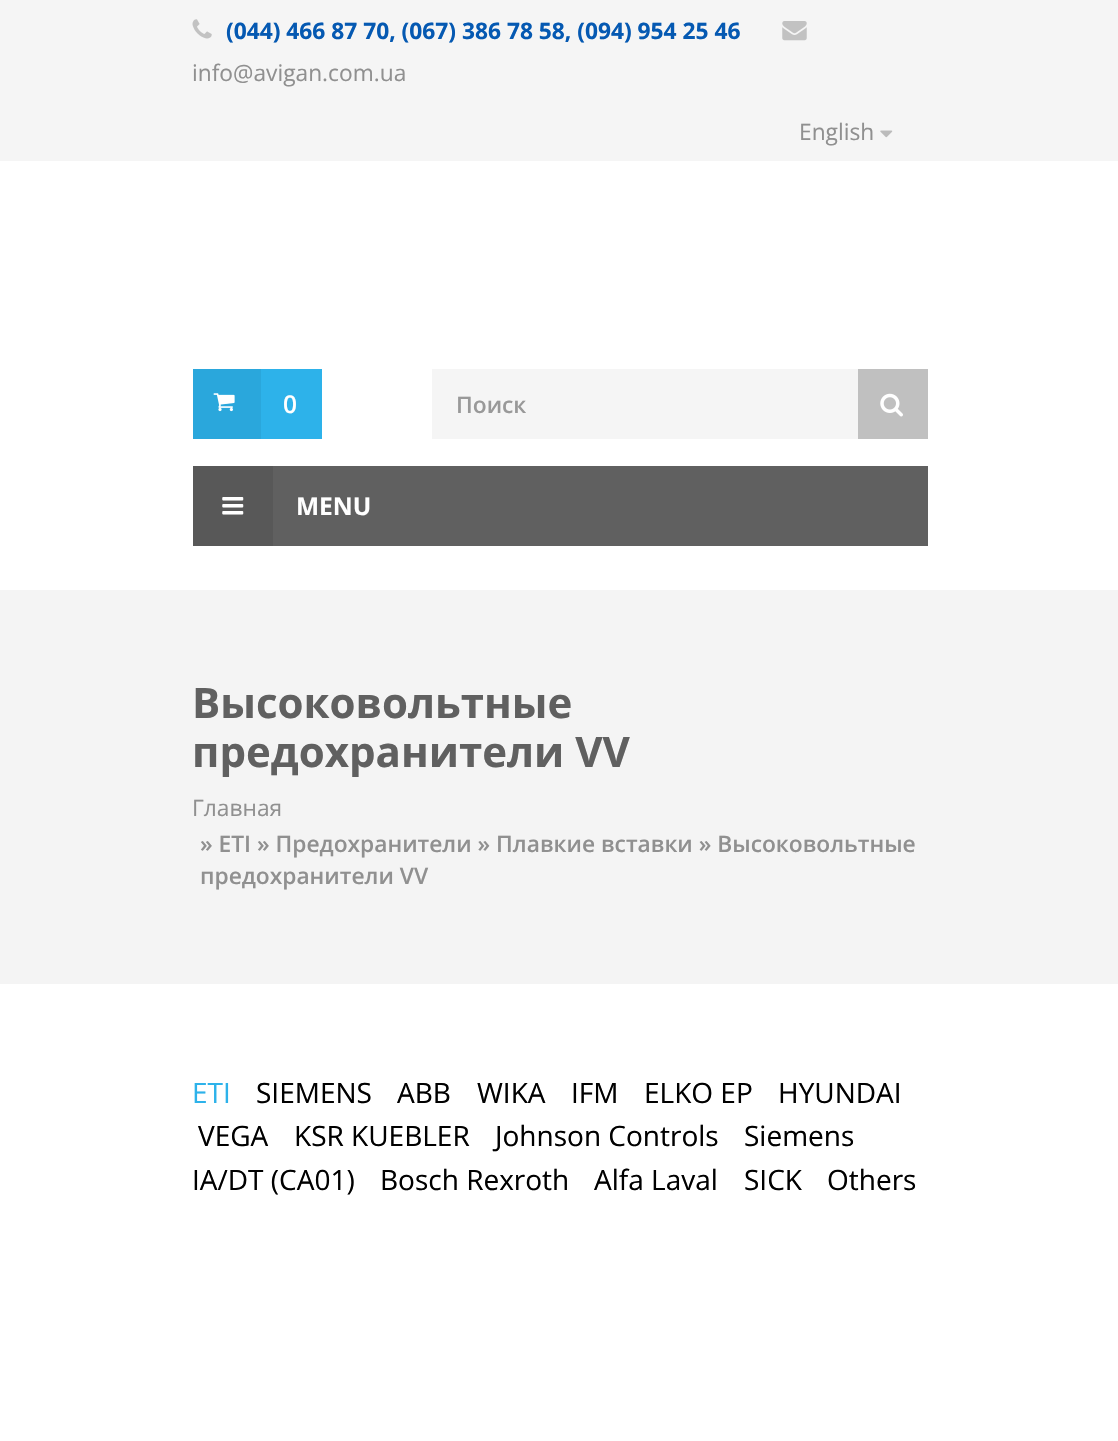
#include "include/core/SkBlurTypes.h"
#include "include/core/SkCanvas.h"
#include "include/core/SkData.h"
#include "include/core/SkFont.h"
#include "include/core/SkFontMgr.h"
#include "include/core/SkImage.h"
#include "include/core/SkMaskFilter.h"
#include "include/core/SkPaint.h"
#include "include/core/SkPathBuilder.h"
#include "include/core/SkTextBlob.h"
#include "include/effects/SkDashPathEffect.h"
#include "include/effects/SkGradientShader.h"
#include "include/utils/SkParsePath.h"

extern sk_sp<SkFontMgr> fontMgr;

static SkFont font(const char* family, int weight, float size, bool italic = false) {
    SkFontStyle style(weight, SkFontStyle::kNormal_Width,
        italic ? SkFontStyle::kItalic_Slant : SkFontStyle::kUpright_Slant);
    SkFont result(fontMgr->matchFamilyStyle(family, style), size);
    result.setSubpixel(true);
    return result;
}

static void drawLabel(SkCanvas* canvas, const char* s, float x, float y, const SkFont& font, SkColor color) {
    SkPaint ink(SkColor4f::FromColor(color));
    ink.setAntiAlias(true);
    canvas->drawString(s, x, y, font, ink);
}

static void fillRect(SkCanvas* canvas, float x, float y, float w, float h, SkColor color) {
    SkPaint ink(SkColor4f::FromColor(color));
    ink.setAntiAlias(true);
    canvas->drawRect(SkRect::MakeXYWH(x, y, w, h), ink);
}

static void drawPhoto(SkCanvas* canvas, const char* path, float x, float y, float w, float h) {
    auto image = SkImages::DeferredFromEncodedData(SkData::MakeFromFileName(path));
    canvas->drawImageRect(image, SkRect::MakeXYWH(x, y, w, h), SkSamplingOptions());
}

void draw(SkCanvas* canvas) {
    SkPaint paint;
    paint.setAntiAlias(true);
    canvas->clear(0xFFFFFFFF);
    fillRect(canvas, 0, 0, 1118, 161, 0xFFF5F5F5);
    drawPhoto(canvas, "assets/img1.png", 192, 19, 20, 20);
    SkFont font1 = font("Open Sans", 700, 22.75f);
    drawLabel(canvas, "(044) 466 87 70, (067) 386 78 58, (094) 954 25 46", 226, 39, font1, 0xFF0559B2);
    drawPhoto(canvas, "assets/img2.png", 782, 21, 25, 20);
    SkFont font2 = font("Open Sans", 400, 22.75f);
    drawLabel(canvas, "info@avigan.com.ua", 192, 81, font2, 0xFF909090);
    drawLabel(canvas, "English", 799, 140, font2, 0xFF909090);
    drawPhoto(canvas, "assets/img3.png", 880, 130, 13, 8);
    fillRect(canvas, 261, 369, 61, 70, 0xFF2DB2EA);
    fillRect(canvas, 193, 369, 68, 70, 0xFF2AA7DC);
    drawPhoto(canvas, "assets/img4.png", 213, 393, 22, 19);
    SkFont font3 = font("Open Sans", 600, 24.5f);
    drawLabel(canvas, "0", 283, 413, font3, 0xFFFFFFFF);
    fillRect(canvas, 432, 369, 426, 70, 0xFFF5F5F5);
    SkFont font4 = font("Open Sans", 600, 22.75f);
    drawLabel(canvas, "Поиск", 456, 413, font4, 0xFF999999);
    fillRect(canvas, 858, 369, 70, 70, 0xFFC0C0C0);
    drawPhoto(canvas, "assets/img5.png", 880, 393, 23, 24);
    fillRect(canvas, 273, 466, 655, 80, 0xFF606060);
    fillRect(canvas, 193, 466, 80, 80, 0xFF585858);
    drawPhoto(canvas, "assets/img6.png", 222, 497, 22, 18);
    SkFont font5 = font("Open Sans", 700, 24.5f);
    drawLabel(canvas, "MENU", 296, 515, font5, 0xFFFFFFFF);
    fillRect(canvas, 0, 590, 1118, 394, 0xFFF4F4F4);
    SkFont font6 = font("Open Sans", 700, 42);
    drawLabel(canvas, "Высоковольтные", 192, 718, font6, 0xFF606060);
    drawLabel(canvas, "предохранители VV", 192, 767, font6, 0xFF606060);
    drawLabel(canvas, "Главная", 192, 816, font2, 0xFF909090);
    drawLabel(canvas, "» ETI » Предохранители » Плавкие вставки » Высоковольтные", 200, 852, font4, 0xFF909090);
    drawLabel(canvas, "предохранители VV", 200, 884, font4, 0xFF909090);
    SkFont font7 = font("Open Sans", 400, 28);
    drawLabel(canvas, "ETI", 192, 1103, font7, 0xFF2DB2EA);
    drawLabel(canvas, "SIEMENS", 256, 1103, font7, 0xFF000000);
    drawLabel(canvas, "ABB", 397, 1103, font7, 0xFF000000);
    drawLabel(canvas, "WIKA", 477, 1103, font7, 0xFF000000);
    drawLabel(canvas, "IFM", 571, 1103, font7, 0xFF000000);
    drawLabel(canvas, "ELKO EP", 644, 1103, font7, 0xFF000000);
    drawLabel(canvas, "HYUNDAI", 778, 1103, font7, 0xFF000000);
    drawLabel(canvas, "VEGA", 198, 1146, font7, 0xFF000000);
    drawLabel(canvas, "KSR KUEBLER", 294, 1146, font7, 0xFF000000);
    drawLabel(canvas, "Johnson Controls", 495, 1146, font7, 0xFF000000);
    drawLabel(canvas, "Siemens", 744, 1146, font7, 0xFF000000);
    drawLabel(canvas, "IA/DT (CA01)", 192, 1190, font7, 0xFF000000);
    drawLabel(canvas, "Bosch Rexroth", 380, 1190, font7, 0xFF000000);
    drawLabel(canvas, "Alfa Laval", 594, 1190, font7, 0xFF000000);
    drawLabel(canvas, "SICK", 744, 1190, font7, 0xFF000000);
    drawLabel(canvas, "Others", 827, 1190, font7, 0xFF000000);
}
